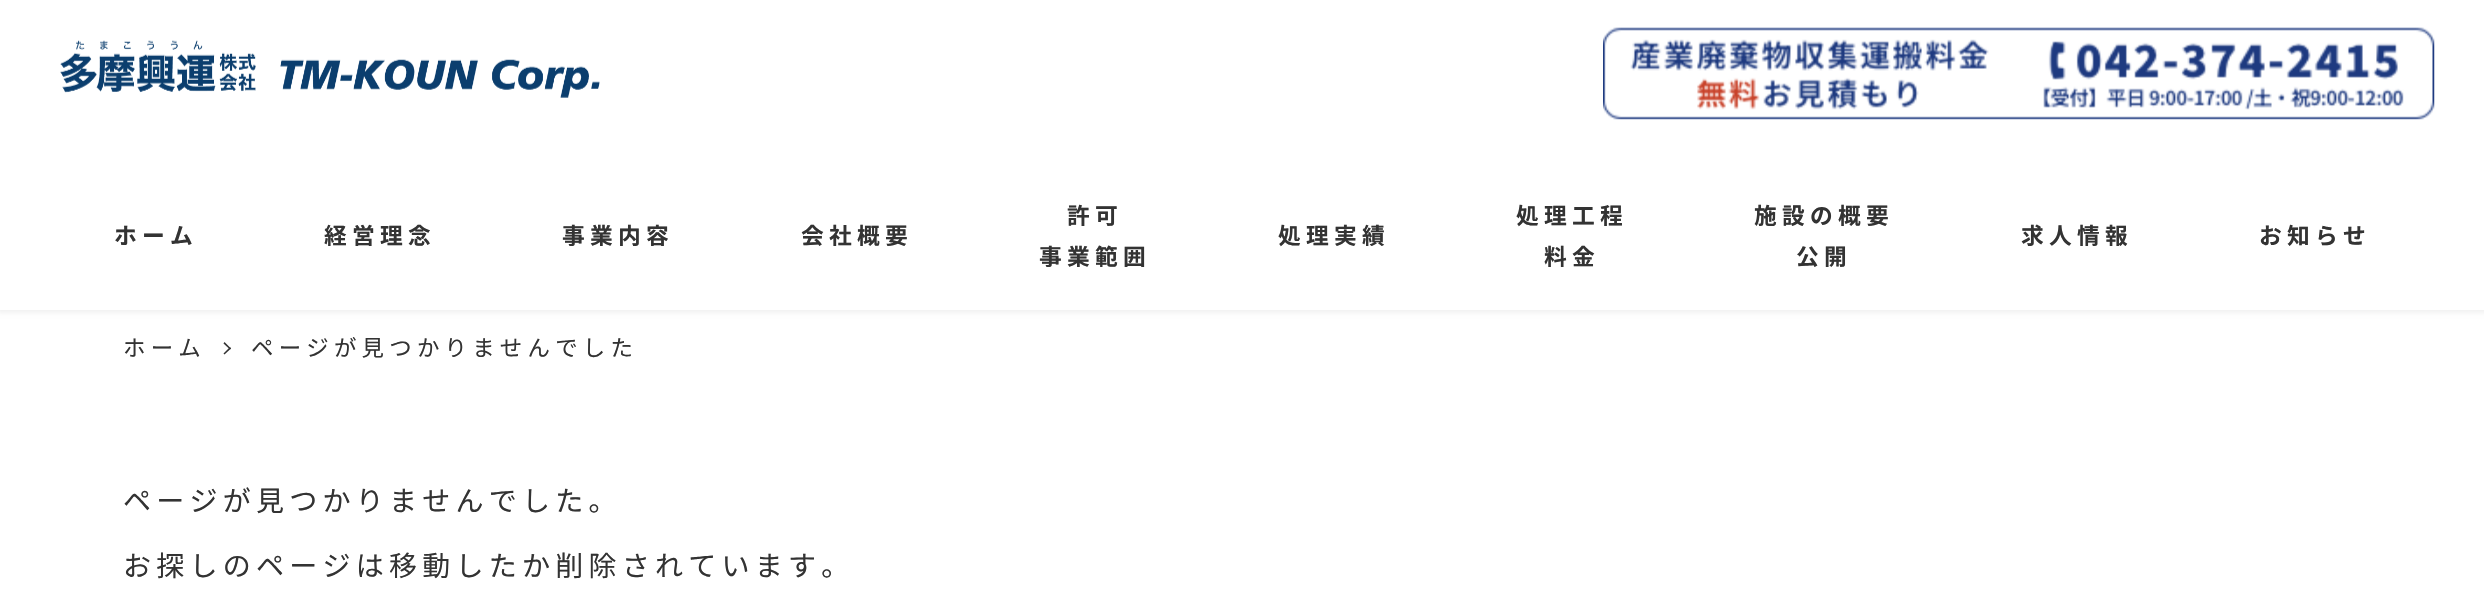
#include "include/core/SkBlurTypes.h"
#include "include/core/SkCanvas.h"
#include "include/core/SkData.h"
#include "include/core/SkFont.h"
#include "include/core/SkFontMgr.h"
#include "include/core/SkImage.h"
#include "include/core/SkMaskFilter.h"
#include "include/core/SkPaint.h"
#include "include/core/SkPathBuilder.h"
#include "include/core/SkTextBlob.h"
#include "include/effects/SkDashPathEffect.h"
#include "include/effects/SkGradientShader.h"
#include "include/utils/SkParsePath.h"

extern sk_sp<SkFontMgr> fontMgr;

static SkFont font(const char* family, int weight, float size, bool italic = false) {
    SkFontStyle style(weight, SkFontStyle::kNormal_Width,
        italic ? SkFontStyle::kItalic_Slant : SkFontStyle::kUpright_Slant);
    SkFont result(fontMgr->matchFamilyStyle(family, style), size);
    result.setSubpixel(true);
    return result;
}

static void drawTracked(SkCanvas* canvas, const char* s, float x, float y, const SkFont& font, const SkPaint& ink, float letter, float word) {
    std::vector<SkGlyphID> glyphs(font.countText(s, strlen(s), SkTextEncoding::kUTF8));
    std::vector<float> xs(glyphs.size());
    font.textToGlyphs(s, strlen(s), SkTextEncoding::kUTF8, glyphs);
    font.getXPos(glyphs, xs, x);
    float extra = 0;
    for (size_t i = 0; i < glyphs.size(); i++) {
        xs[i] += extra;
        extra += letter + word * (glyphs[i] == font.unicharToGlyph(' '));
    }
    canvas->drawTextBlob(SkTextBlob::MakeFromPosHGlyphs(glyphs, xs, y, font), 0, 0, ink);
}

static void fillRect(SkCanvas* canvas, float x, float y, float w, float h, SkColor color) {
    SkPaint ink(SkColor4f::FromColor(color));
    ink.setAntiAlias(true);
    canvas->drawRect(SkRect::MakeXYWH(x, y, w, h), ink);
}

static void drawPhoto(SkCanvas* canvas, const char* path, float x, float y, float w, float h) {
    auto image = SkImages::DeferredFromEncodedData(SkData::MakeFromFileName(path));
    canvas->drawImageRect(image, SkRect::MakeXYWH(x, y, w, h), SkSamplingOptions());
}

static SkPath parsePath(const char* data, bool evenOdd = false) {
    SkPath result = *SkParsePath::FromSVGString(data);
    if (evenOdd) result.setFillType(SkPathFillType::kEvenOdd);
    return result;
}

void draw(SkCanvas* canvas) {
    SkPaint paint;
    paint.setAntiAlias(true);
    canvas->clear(0xFFFFFFFF);
    paint.setColor(0x0D000000);
    paint.setMaskFilter(SkMaskFilter::MakeBlur(kNormal_SkBlurStyle, 2));
    canvas->drawRect(SkRect::MakeXYWH(-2, 0, 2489, 313), paint);
    paint.setMaskFilter(nullptr);
    fillRect(canvas, 0, 0, 2484, 310, 0xFFFFFFFF);
    drawPhoto(canvas, "assets/img1.png", 60, 40, 540, 58);
    drawPhoto(canvas, "assets/img2.png", 1603, 27, 832, 93);
    SkFont font1 = font("Noto Sans JP", 700, 22.75f);
    paint.setColor(0xFF333333);
    drawTracked(canvas, "ホーム", 114, 244, font1, paint, 5.25f, 0);
    drawTracked(canvas, "経営理念", 324, 244, font1, paint, 5.25f, 0);
    drawTracked(canvas, "事業内容", 562, 244, font1, paint, 5.25f, 0);
    drawTracked(canvas, "会社概要", 801, 244, font1, paint, 5.25f, 0);
    drawTracked(canvas, "許可", 1067, 224, font1, paint, 5.25f, 0);
    drawTracked(canvas, "事業範囲", 1039, 265, font1, paint, 5.25f, 0);
    drawTracked(canvas, "処理実績", 1278, 244, font1, paint, 5.25f, 0);
    drawTracked(canvas, "処理工程", 1516, 224, font1, paint, 5.25f, 0);
    drawTracked(canvas, "料金", 1544, 265, font1, paint, 5.25f, 0);
    drawTracked(canvas, "施設の概要", 1754, 224, font1, paint, 5.25f, 0);
    drawTracked(canvas, "公開", 1796, 265, font1, paint, 5.25f, 0);
    drawTracked(canvas, "求人情報", 2021, 244, font1, paint, 5.25f, 0);
    drawTracked(canvas, "お知らせ", 2259, 244, font1, paint, 5.25f, 0);
    SkFont font2 = font("Noto Sans JP", 400, 22.4f);
    drawTracked(canvas, "ホーム", 123, 356, font2, paint, 5.25f, 0);
    canvas->drawPath(parsePath("M224.5 342L231 348.5L230 349.5L223.5 343.5Z"), paint);
    canvas->drawPath(parsePath("M230 347L231 348.5L224.5 354.5L223.5 353.5Z"), paint);
    drawTracked(canvas, "ページが見つかりませんでした", 251, 356, font2, paint, 5.25f, 0);
    SkFont font3 = font("Noto Sans JP", 400, 28);
    drawTracked(canvas, "ページが見つかりませんでした。", 123, 511, font3, paint, 5.25f, 0);
    drawTracked(canvas, "お探しのページは移動したか削除されています。", 123, 576, font3, paint, 5.25f, 0);
}
